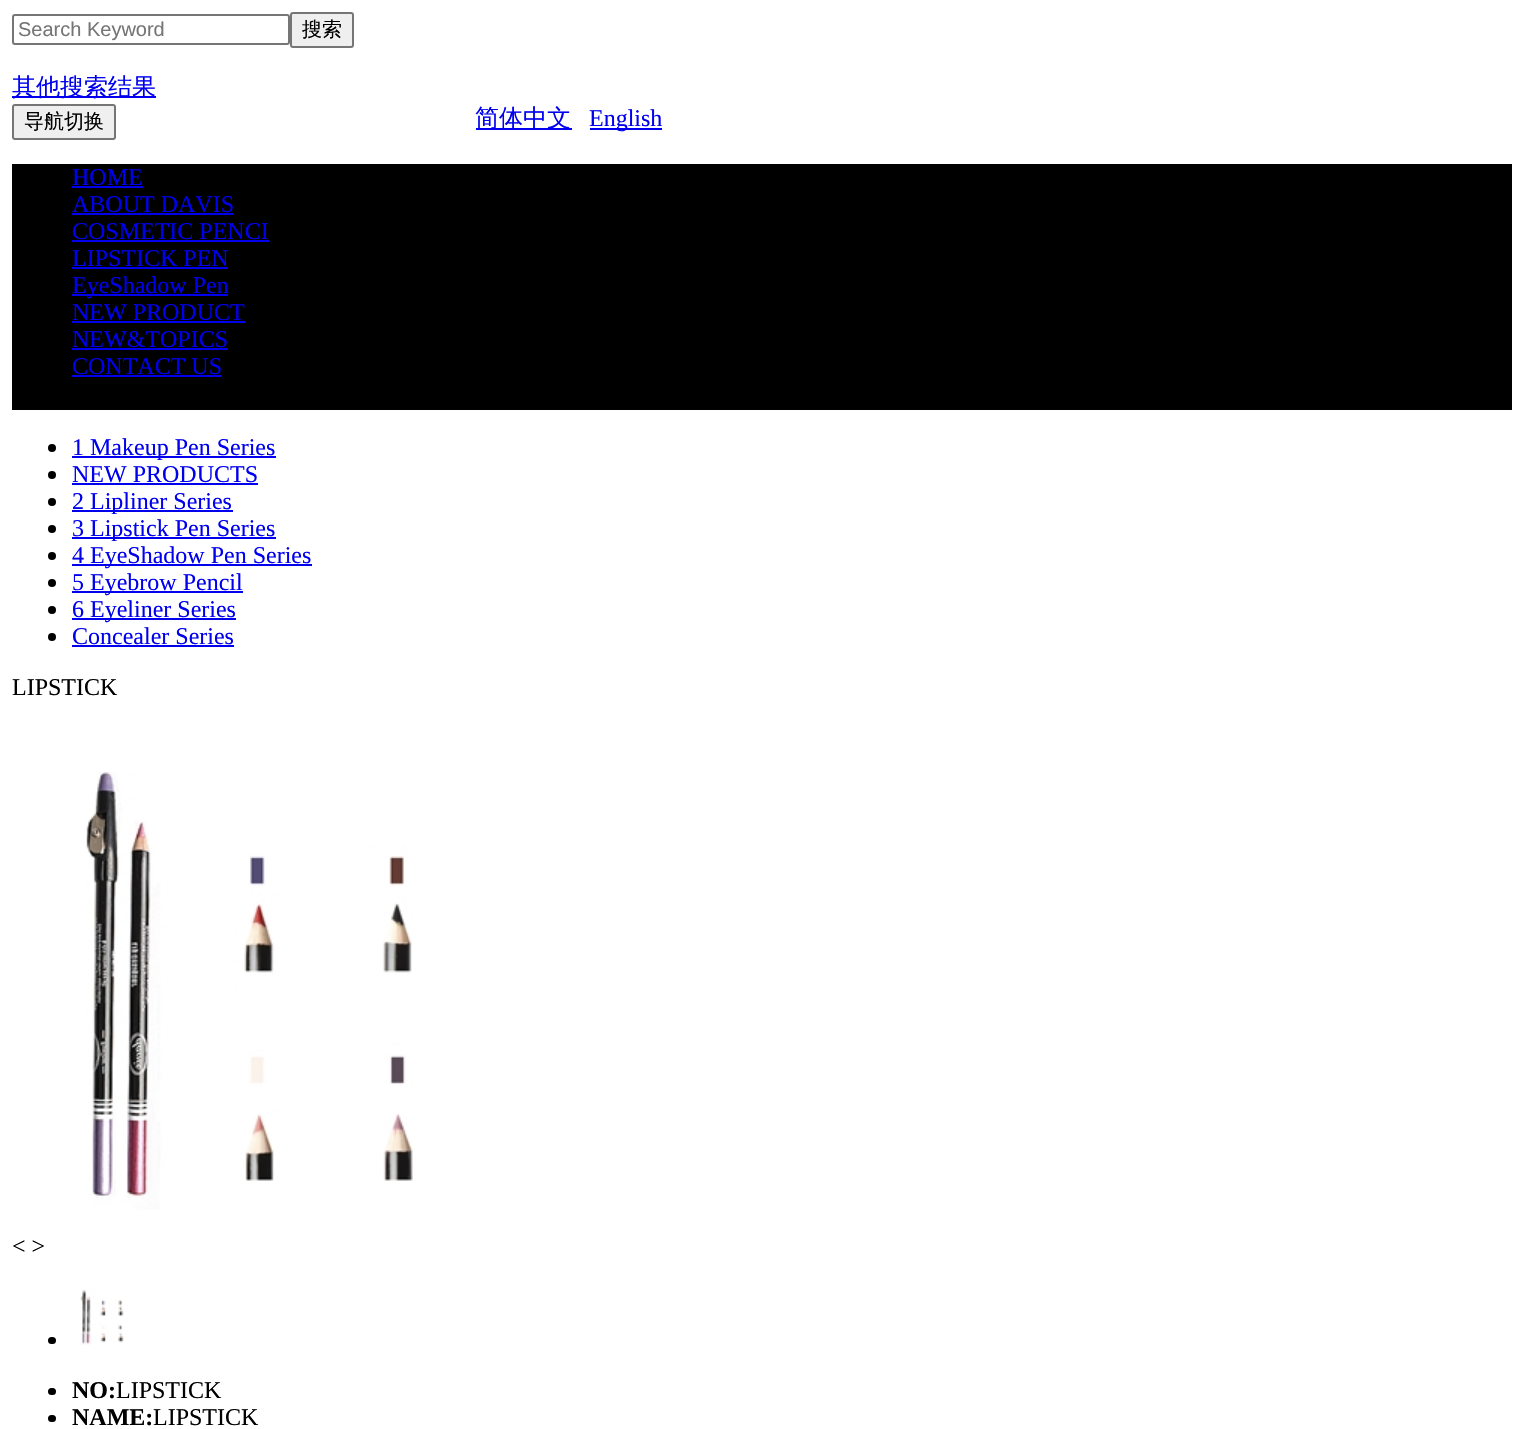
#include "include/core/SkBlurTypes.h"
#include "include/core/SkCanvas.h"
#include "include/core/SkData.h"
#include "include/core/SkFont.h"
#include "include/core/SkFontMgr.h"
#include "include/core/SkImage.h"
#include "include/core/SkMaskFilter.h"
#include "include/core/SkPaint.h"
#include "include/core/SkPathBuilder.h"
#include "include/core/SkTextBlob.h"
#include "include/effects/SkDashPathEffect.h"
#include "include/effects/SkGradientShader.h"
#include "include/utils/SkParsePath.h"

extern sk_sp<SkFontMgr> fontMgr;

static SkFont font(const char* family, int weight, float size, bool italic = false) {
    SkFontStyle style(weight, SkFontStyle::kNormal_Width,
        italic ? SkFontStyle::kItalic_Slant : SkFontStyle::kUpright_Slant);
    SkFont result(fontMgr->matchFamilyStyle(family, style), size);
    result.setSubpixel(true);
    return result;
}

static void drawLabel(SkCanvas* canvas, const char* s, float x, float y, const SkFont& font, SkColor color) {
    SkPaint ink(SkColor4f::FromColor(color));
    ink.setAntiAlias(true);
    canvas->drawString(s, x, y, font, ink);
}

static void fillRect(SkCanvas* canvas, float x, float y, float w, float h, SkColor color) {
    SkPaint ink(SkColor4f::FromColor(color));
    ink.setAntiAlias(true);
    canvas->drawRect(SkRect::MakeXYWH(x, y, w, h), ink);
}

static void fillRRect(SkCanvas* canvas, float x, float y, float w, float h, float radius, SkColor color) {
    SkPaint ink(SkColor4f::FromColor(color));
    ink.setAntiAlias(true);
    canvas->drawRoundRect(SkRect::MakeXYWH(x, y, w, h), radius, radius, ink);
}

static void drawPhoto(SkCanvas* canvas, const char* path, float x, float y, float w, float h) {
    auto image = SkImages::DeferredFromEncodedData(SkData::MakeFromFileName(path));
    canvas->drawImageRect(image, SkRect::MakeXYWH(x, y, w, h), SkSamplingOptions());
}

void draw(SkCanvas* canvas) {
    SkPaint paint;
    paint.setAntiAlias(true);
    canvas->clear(0xFFFFFFFF);
    paint.setStroke(true);
    paint.setStrokeWidth(2);
    paint.setColor(0xFF767676);
    canvas->drawRoundRect(SkRect::MakeXYWH(13, 15, 276, 29), 2, 2, paint);
    SkFont font1 = font("Liberation Sans", 400, 20);
    drawLabel(canvas, "Search Keyword", 18, 36, font1, 0xFF757575);
    paint.setStroke(false);
    paint.setColor(0xFFEFEFEF);
    canvas->drawRoundRect(SkRect::MakeXYWH(291, 13, 62, 34), 2, 2, paint);
    paint.setStroke(true);
    paint.setColor(0xFF767676);
    canvas->drawRoundRect(SkRect::MakeXYWH(291, 13, 62, 34), 2, 2, paint);
    SkFont font2 = font("WenQuanYi Zen Hei", 500, 20);
    drawLabel(canvas, "搜索", 302, 36, font2, 0xFF000000);
    fillRect(canvas, 12, 96, 144, 2, 0xFF0000EE);
    SkFont font3 = font("WenQuanYi Zen Hei", 500, 24);
    drawLabel(canvas, "其他搜索结果", 12, 95, font3, 0xFF0000EE);
    paint.setStroke(false);
    paint.setColor(0xFFEFEFEF);
    canvas->drawRoundRect(SkRect::MakeXYWH(13, 105, 102, 34), 2, 2, paint);
    paint.setStroke(true);
    paint.setColor(0xFF767676);
    canvas->drawRoundRect(SkRect::MakeXYWH(13, 105, 102, 34), 2, 2, paint);
    drawLabel(canvas, "导航切换", 24, 128, font2, 0xFF000000);
    fillRect(canvas, 12, 164, 1500, 246, 0xFF000000);
    SkFont font4 = font("Liberation Serif", 400, 24);
    drawLabel(canvas, "HOME", 72, 185, font4, 0xFF0000EE);
    fillRect(canvas, 72, 186, 71, 2, 0xFF0000EE);
    drawLabel(canvas, "ABOUT DAVIS", 72, 212, font4, 0xFF0000EE);
    fillRect(canvas, 72, 213, 162, 2, 0xFF0000EE);
    drawLabel(canvas, "COSMETIC PENCI", 72, 239, font4, 0xFF0000EE);
    fillRect(canvas, 72, 240, 197, 2, 0xFF0000EE);
    drawLabel(canvas, "LIPSTICK PEN", 72, 266, font4, 0xFF0000EE);
    fillRect(canvas, 72, 267, 156, 2, 0xFF0000EE);
    fillRect(canvas, 72, 294, 156, 2, 0xFF0000EE);
    drawLabel(canvas, "EyeShadow Pen", 72, 293, font4, 0xFF0000EE);
    drawLabel(canvas, "NEW PRODUCT", 72, 320, font4, 0xFF0000EE);
    fillRect(canvas, 72, 321, 173, 2, 0xFF0000EE);
    drawLabel(canvas, "NEW&TOPICS", 72, 347, font4, 0xFF0000EE);
    fillRect(canvas, 72, 348, 156, 2, 0xFF0000EE);
    drawLabel(canvas, "CONTACT US", 72, 374, font4, 0xFF0000EE);
    fillRect(canvas, 72, 375, 150, 2, 0xFF0000EE);
    fillRect(canvas, 476, 128, 96, 2, 0xFF0000EE);
    drawLabel(canvas, "简体中文", 475, 126, font3, 0xFF0000EE);
    fillRect(canvas, 590, 128, 72, 2, 0xFF0000EE);
    drawLabel(canvas, "English", 589, 126, font4, 0xFF0000EE);
    paint.setStroke(false);
    paint.setColor(0xFF000000);
    canvas->drawCircle(52, 448, 4, paint);
    fillRect(canvas, 72, 456, 204, 2, 0xFF0000EE);
    drawLabel(canvas, "1 Makeup Pen Series", 72, 455, font4, 0xFF0000EE);
    canvas->drawCircle(52, 475, 4, paint);
    drawLabel(canvas, "NEW PRODUCTS", 72, 482, font4, 0xFF0000EE);
    fillRect(canvas, 72, 483, 186, 2, 0xFF0000EE);
    canvas->drawCircle(52, 502, 4, paint);
    fillRect(canvas, 72, 510, 161, 2, 0xFF0000EE);
    drawLabel(canvas, "2 Lipliner Series", 72, 509, font4, 0xFF0000EE);
    canvas->drawCircle(52, 529, 4, paint);
    fillRect(canvas, 72, 537, 204, 2, 0xFF0000EE);
    drawLabel(canvas, "3 Lipstick Pen Series", 72, 536, font4, 0xFF0000EE);
    canvas->drawCircle(52, 556, 4, paint);
    fillRect(canvas, 72, 564, 240, 2, 0xFF0000EE);
    drawLabel(canvas, "4 EyeShadow Pen Series", 72, 563, font4, 0xFF0000EE);
    canvas->drawCircle(52, 583, 4, paint);
    fillRect(canvas, 72, 591, 171, 2, 0xFF0000EE);
    drawLabel(canvas, "5 Eyebrow Pencil", 72, 590, font4, 0xFF0000EE);
    canvas->drawCircle(52, 610, 4, paint);
    fillRect(canvas, 72, 618, 164, 2, 0xFF0000EE);
    drawLabel(canvas, "6 Eyeliner Series", 72, 617, font4, 0xFF0000EE);
    canvas->drawCircle(52, 637, 4, paint);
    drawLabel(canvas, "Concealer Series", 72, 644, font4, 0xFF0000EE);
    fillRect(canvas, 72, 645, 162, 2, 0xFF0000EE);
    drawLabel(canvas, "LIPSTICK", 12, 695, font4, 0xFF000000);
    drawPhoto(canvas, "assets/img1.png", 86, 772, 327, 438);
    drawLabel(canvas, "< >", 12, 1254, font4, 0xFF000000);
    fillRRect(canvas, 48, 1337, 8, 7, 3.5f, 0xFF000000);
    drawPhoto(canvas, "assets/img2.png", 80, 1289, 44, 56);
    fillRRect(canvas, 48, 1388, 8, 7, 3.5f, 0xFF000000);
    SkFont font5 = font("Liberation Serif", 700, 24);
    drawLabel(canvas, "NO:", 72, 1398, font5, 0xFF000000);
    drawLabel(canvas, "LIPSTICK", 116, 1398, font4, 0xFF000000);
    fillRRect(canvas, 48, 1415, 8, 7, 3.5f, 0xFF000000);
    drawLabel(canvas, "NAME:", 72, 1425, font5, 0xFF000000);
    drawLabel(canvas, "LIPSTICK", 153, 1425, font4, 0xFF000000);
}
